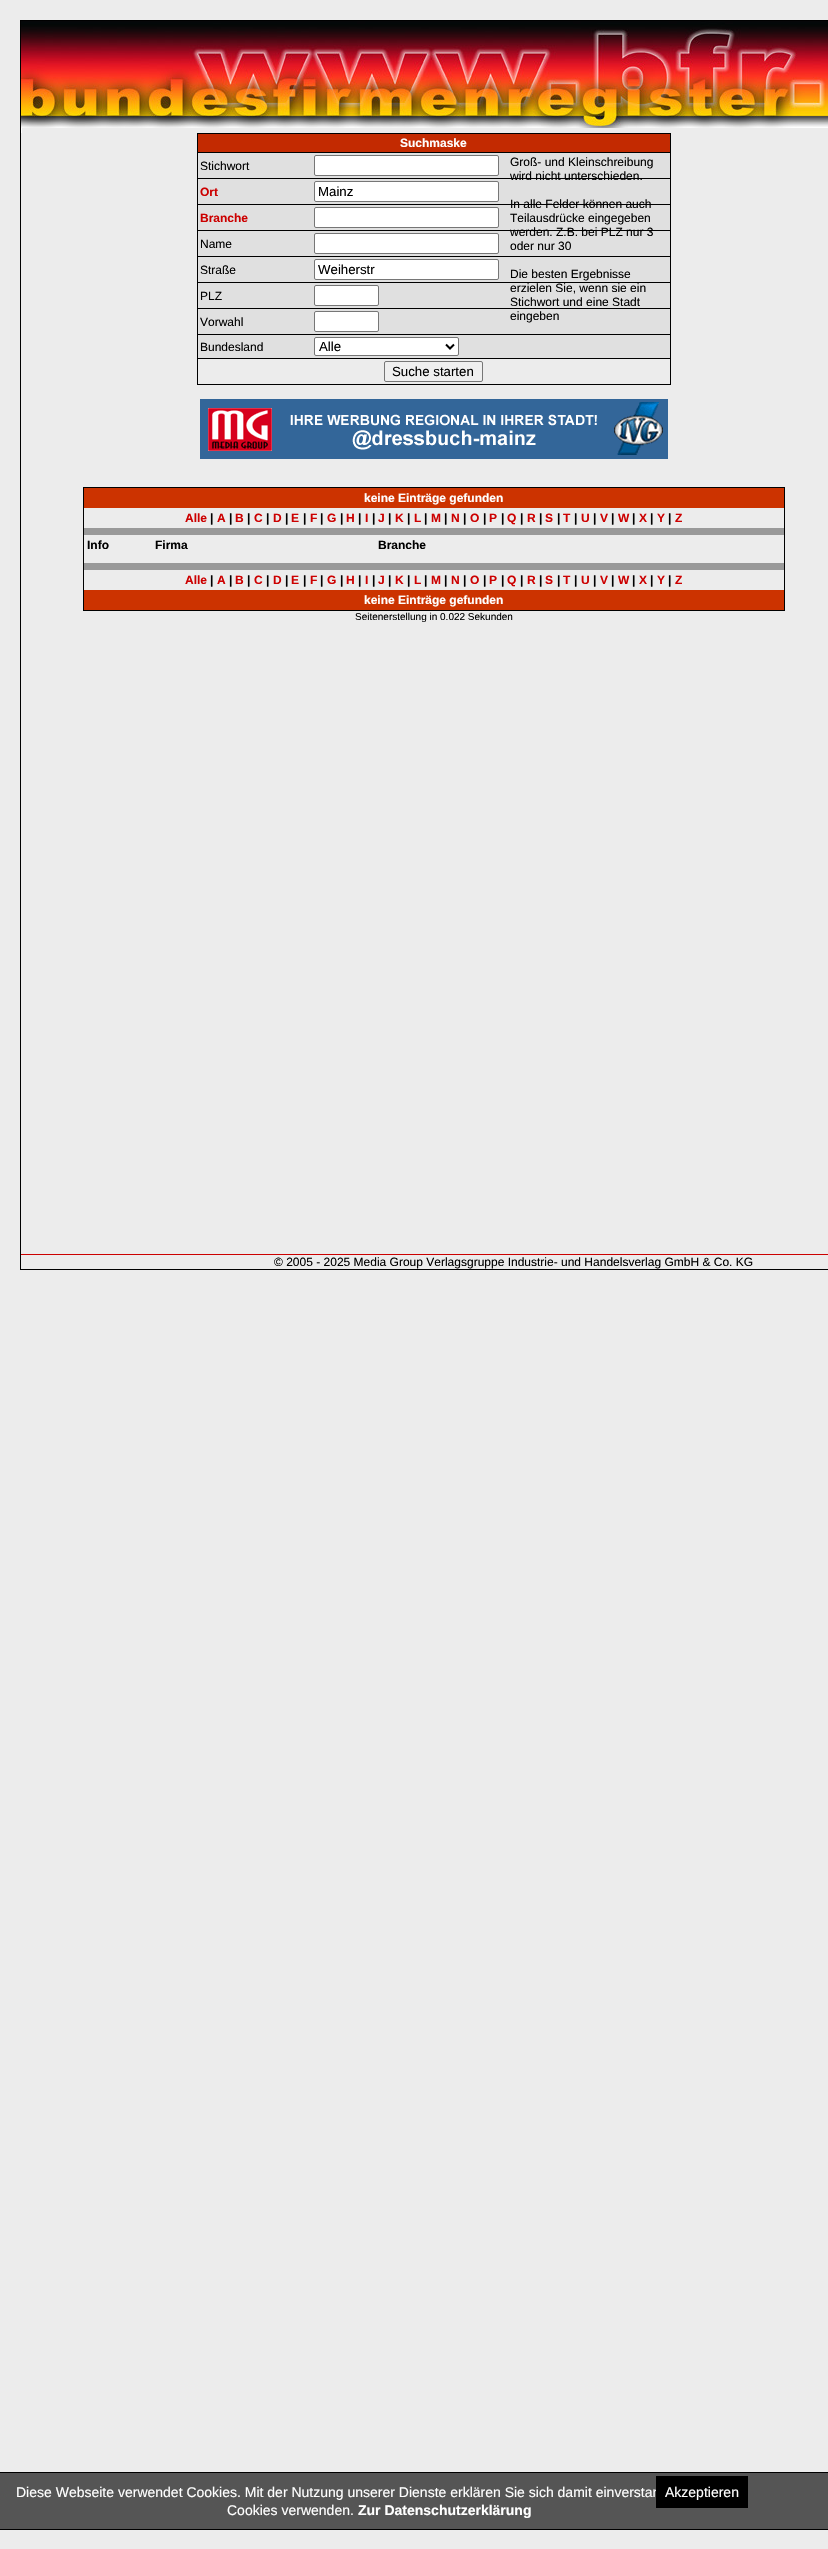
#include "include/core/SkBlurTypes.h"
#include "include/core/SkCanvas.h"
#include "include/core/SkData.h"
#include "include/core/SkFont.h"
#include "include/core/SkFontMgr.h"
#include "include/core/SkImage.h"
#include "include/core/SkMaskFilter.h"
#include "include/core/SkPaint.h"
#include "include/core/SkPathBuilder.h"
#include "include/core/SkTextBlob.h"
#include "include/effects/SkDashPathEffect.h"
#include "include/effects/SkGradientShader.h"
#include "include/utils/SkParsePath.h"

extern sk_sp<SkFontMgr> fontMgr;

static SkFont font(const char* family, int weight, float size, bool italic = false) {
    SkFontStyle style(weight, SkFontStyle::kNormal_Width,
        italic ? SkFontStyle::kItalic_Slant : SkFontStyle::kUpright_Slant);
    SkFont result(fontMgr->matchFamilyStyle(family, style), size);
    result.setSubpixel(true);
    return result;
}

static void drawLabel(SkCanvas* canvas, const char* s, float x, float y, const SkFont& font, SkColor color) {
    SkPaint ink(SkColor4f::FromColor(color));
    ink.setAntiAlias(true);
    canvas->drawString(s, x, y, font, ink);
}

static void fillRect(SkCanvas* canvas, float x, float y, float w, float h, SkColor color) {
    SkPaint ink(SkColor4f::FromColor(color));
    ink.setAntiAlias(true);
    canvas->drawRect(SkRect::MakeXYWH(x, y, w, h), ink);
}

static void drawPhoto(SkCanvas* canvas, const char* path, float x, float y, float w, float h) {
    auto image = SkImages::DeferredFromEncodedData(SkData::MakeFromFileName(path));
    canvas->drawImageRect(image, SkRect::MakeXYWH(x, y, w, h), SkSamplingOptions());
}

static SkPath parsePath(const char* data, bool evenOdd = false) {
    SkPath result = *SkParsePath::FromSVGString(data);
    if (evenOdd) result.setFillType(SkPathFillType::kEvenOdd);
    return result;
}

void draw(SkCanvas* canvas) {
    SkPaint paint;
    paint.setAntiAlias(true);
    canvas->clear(0xFFECECEC);
    paint.setStroke(true);
    paint.setStrokeWidth(1);
    paint.setColor(0xFF000000);
    canvas->drawRect(SkRect::MakeXYWH(20.5f, 20.5f, 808, 1249), paint);
    drawPhoto(canvas, "assets/img1.png", 21, 21, 807, 107);
    fillRect(canvas, 21, 128, 1, 5, 0xFFFFFFFF);
    fillRect(canvas, 197, 133, 474, 252, 0xFF000000);
    fillRect(canvas, 198, 134, 472, 18, 0xFFC32A01);
    SkFont font1 = font("Liberation Sans", 700, 12);
    drawLabel(canvas, "Suchmaske", 400, 147, font1, 0xFFFFFFFF);
    fillRect(canvas, 198, 153, 472, 25, 0xFFE0E0E0);
    SkFont font2 = font("Liberation Sans", 400, 12);
    drawLabel(canvas, "Stichwort", 200, 170, font2, 0xFF000000);
    paint.setStroke(false);
    paint.setColor(0xFFFFFFFF);
    canvas->drawRoundRect(SkRect::MakeXYWH(314.5f, 155.5f, 184, 20), 1.5f, 1.5f, paint);
    paint.setStroke(true);
    paint.setColor(0xFF767676);
    canvas->drawRoundRect(SkRect::MakeXYWH(314.5f, 155.5f, 184, 20), 1.5f, 1.5f, paint);
    drawLabel(canvas, "Groß- und Kleinschreibung", 510, 166, font2, 0xFF000000);
    fillRect(canvas, 198, 179, 472, 25, 0xFFE0E0E0);
    drawLabel(canvas, "wird nicht unterschieden.", 510, 180, font2, 0xFF000000);
    fillRect(canvas, 198, 205, 472, 25, 0xFFE0E0E0);
    drawLabel(canvas, "In alle Felder können auch", 510, 208, font2, 0xFF000000);
    drawLabel(canvas, "Teilausdrücke eingegeben", 510, 222, font2, 0xFF000000);
    fillRect(canvas, 198, 231, 472, 25, 0xFFE0E0E0);
    drawLabel(canvas, "werden. Z.B. bei PLZ nur 3", 510, 236, font2, 0xFF000000);
    drawLabel(canvas, "oder nur 30", 510, 250, font2, 0xFF000000);
    fillRect(canvas, 198, 257, 472, 25, 0xFFE0E0E0);
    drawLabel(canvas, "Die besten Ergebnisse", 510, 278, font2, 0xFF000000);
    fillRect(canvas, 198, 283, 472, 25, 0xFFE0E0E0);
    drawLabel(canvas, "erzielen Sie, wenn sie ein", 510, 292, font2, 0xFF000000);
    drawLabel(canvas, "Stichwort und eine Stadt", 510, 306, font2, 0xFF000000);
    fillRect(canvas, 198, 309, 472, 25, 0xFFE0E0E0);
    drawLabel(canvas, "eingeben", 510, 320, font2, 0xFF000000);
    drawLabel(canvas, "Ort", 200, 196, font1, 0xFFCC0000);
    paint.setStroke(false);
    paint.setColor(0xFFFFFFFF);
    canvas->drawRoundRect(SkRect::MakeXYWH(314.5f, 181.5f, 184, 20), 1.5f, 1.5f, paint);
    paint.setStroke(true);
    paint.setColor(0xFF767676);
    canvas->drawRoundRect(SkRect::MakeXYWH(314.5f, 181.5f, 184, 20), 1.5f, 1.5f, paint);
    SkFont font3 = font("Liberation Sans", 400, 13.25f);
    drawLabel(canvas, "Mainz", 318, 196, font3, 0xFF000000);
    drawLabel(canvas, "Branche", 200, 222, font1, 0xFFCC0000);
    paint.setStroke(false);
    paint.setColor(0xFFFFFFFF);
    canvas->drawRoundRect(SkRect::MakeXYWH(314.5f, 207.5f, 184, 20), 1.5f, 1.5f, paint);
    paint.setStroke(true);
    paint.setColor(0xFF767676);
    canvas->drawRoundRect(SkRect::MakeXYWH(314.5f, 207.5f, 184, 20), 1.5f, 1.5f, paint);
    drawLabel(canvas, "Name", 200, 248, font2, 0xFF000000);
    paint.setStroke(false);
    paint.setColor(0xFFFFFFFF);
    canvas->drawRoundRect(SkRect::MakeXYWH(314.5f, 233.5f, 184, 20), 1.5f, 1.5f, paint);
    paint.setStroke(true);
    paint.setColor(0xFF767676);
    canvas->drawRoundRect(SkRect::MakeXYWH(314.5f, 233.5f, 184, 20), 1.5f, 1.5f, paint);
    drawLabel(canvas, "Straße", 200, 274, font2, 0xFF000000);
    paint.setStroke(false);
    paint.setColor(0xFFFFFFFF);
    canvas->drawRoundRect(SkRect::MakeXYWH(314.5f, 259.5f, 184, 20), 1.5f, 1.5f, paint);
    paint.setStroke(true);
    paint.setColor(0xFF767676);
    canvas->drawRoundRect(SkRect::MakeXYWH(314.5f, 259.5f, 184, 20), 1.5f, 1.5f, paint);
    drawLabel(canvas, "Weiherstr", 318, 274, font3, 0xFF000000);
    drawLabel(canvas, "PLZ", 200, 300, font2, 0xFF000000);
    paint.setStroke(false);
    paint.setColor(0xFFFFFFFF);
    canvas->drawRoundRect(SkRect::MakeXYWH(314.5f, 285.5f, 64, 20), 1.5f, 1.5f, paint);
    paint.setStroke(true);
    paint.setColor(0xFF767676);
    canvas->drawRoundRect(SkRect::MakeXYWH(314.5f, 285.5f, 64, 20), 1.5f, 1.5f, paint);
    drawLabel(canvas, "Vorwahl", 200, 326, font2, 0xFF000000);
    paint.setStroke(false);
    paint.setColor(0xFFFFFFFF);
    canvas->drawRoundRect(SkRect::MakeXYWH(314.5f, 311.5f, 64, 20), 1.5f, 1.5f, paint);
    paint.setStroke(true);
    paint.setColor(0xFF767676);
    canvas->drawRoundRect(SkRect::MakeXYWH(314.5f, 311.5f, 64, 20), 1.5f, 1.5f, paint);
    fillRect(canvas, 198, 335, 472, 23, 0xFFE0E0E0);
    drawLabel(canvas, "Bundesland", 200, 351, font2, 0xFF000000);
    paint.setStroke(false);
    paint.setColor(0xFFFFFFFF);
    canvas->drawRoundRect(SkRect::MakeXYWH(314.5f, 337.5f, 144, 18), 1.5f, 1.5f, paint);
    paint.setStroke(true);
    paint.setColor(0xFF767676);
    canvas->drawRoundRect(SkRect::MakeXYWH(314.5f, 337.5f, 144, 18), 1.5f, 1.5f, paint);
    paint.setStrokeWidth(2);
    paint.setColor(0xFF000000);
    canvas->drawPath(parsePath("M446 344.5L450 348.5L454 344.5"), paint);
    drawLabel(canvas, "Alle", 319, 351, font3, 0xFF000000);
    fillRect(canvas, 198, 359, 472, 25, 0xFFECECEC);
    paint.setStroke(false);
    paint.setColor(0xFFEFEFEF);
    canvas->drawRoundRect(SkRect::MakeXYWH(384.5f, 361.5f, 98, 20), 1.5f, 1.5f, paint);
    paint.setStroke(true);
    paint.setStrokeWidth(1);
    paint.setColor(0xFF767676);
    canvas->drawRoundRect(SkRect::MakeXYWH(384.5f, 361.5f, 98, 20), 1.5f, 1.5f, paint);
    drawLabel(canvas, "Suche starten", 392, 376, font3, 0xFF000000);
    drawPhoto(canvas, "assets/img2.png", 200, 399, 468, 60);
    fillRect(canvas, 83, 487, 702, 124, 0xFF000000);
    fillRect(canvas, 84, 488, 700, 20, 0xFFCC3300);
    drawLabel(canvas, "keine Einträge gefunden", 364, 502, font1, 0xFFFFFFFF);
    fillRect(canvas, 84, 508, 700, 20, 0xFFECECEC);
    drawLabel(canvas, "Alle", 185, 522, font1, 0xFFCC0000);
    drawLabel(canvas, "|", 210, 522, font1, 0xFF000000);
    drawLabel(canvas, "A", 217, 522, font1, 0xFFCC0000);
    drawLabel(canvas, "|", 229, 522, font1, 0xFF000000);
    drawLabel(canvas, "B", 235, 522, font1, 0xFFCC0000);
    drawLabel(canvas, "|", 247, 522, font1, 0xFF000000);
    drawLabel(canvas, "C", 254, 522, font1, 0xFFCC0000);
    drawLabel(canvas, "|", 266, 522, font1, 0xFF000000);
    drawLabel(canvas, "D", 273, 522, font1, 0xFFCC0000);
    drawLabel(canvas, "|", 285, 522, font1, 0xFF000000);
    drawLabel(canvas, "E", 291, 522, font1, 0xFFCC0000);
    drawLabel(canvas, "|", 303, 522, font1, 0xFF000000);
    drawLabel(canvas, "F", 310, 522, font1, 0xFFCC0000);
    drawLabel(canvas, "|", 320, 522, font1, 0xFF000000);
    drawLabel(canvas, "G", 327, 522, font1, 0xFFCC0000);
    drawLabel(canvas, "|", 340, 522, font1, 0xFF000000);
    drawLabel(canvas, "H", 346, 522, font1, 0xFFCC0000);
    drawLabel(canvas, "|", 358, 522, font1, 0xFF000000);
    drawLabel(canvas, "I", 365, 522, font1, 0xFFCC0000);
    drawLabel(canvas, "|", 372, 522, font1, 0xFF000000);
    drawLabel(canvas, "J", 378, 522, font1, 0xFFCC0000);
    drawLabel(canvas, "|", 388, 522, font1, 0xFF000000);
    drawLabel(canvas, "K", 395, 522, font1, 0xFFCC0000);
    drawLabel(canvas, "|", 407, 522, font1, 0xFF000000);
    drawLabel(canvas, "L", 414, 522, font1, 0xFFCC0000);
    drawLabel(canvas, "|", 424, 522, font1, 0xFF000000);
    drawLabel(canvas, "M", 431, 522, font1, 0xFFCC0000);
    drawLabel(canvas, "|", 444, 522, font1, 0xFF000000);
    drawLabel(canvas, "N", 451, 522, font1, 0xFFCC0000);
    drawLabel(canvas, "|", 463, 522, font1, 0xFF000000);
    drawLabel(canvas, "O", 470, 522, font1, 0xFFCC0000);
    drawLabel(canvas, "|", 483, 522, font1, 0xFF000000);
    drawLabel(canvas, "P", 489, 522, font1, 0xFFCC0000);
    drawLabel(canvas, "|", 501, 522, font1, 0xFF000000);
    drawLabel(canvas, "Q", 507, 522, font1, 0xFFCC0000);
    drawLabel(canvas, "|", 520, 522, font1, 0xFF000000);
    drawLabel(canvas, "R", 527, 522, font1, 0xFFCC0000);
    drawLabel(canvas, "|", 539, 522, font1, 0xFF000000);
    drawLabel(canvas, "S", 545, 522, font1, 0xFFCC0000);
    drawLabel(canvas, "|", 557, 522, font1, 0xFF000000);
    drawLabel(canvas, "T", 563, 522, font1, 0xFFCC0000);
    drawLabel(canvas, "|", 574, 522, font1, 0xFF000000);
    drawLabel(canvas, "U", 581, 522, font1, 0xFFCC0000);
    drawLabel(canvas, "|", 593, 522, font1, 0xFF000000);
    drawLabel(canvas, "V", 600, 522, font1, 0xFFCC0000);
    drawLabel(canvas, "|", 611, 522, font1, 0xFF000000);
    drawLabel(canvas, "W", 618, 522, font1, 0xFFCC0000);
    drawLabel(canvas, "|", 632, 522, font1, 0xFF000000);
    drawLabel(canvas, "X", 639, 522, font1, 0xFFCC0000);
    drawLabel(canvas, "|", 650, 522, font1, 0xFF000000);
    drawLabel(canvas, "Y", 657, 522, font1, 0xFFCC0000);
    drawLabel(canvas, "|", 668, 522, font1, 0xFF000000);
    drawLabel(canvas, "Z", 675, 522, font1, 0xFFCC0000);
    fillRect(canvas, 84, 528, 700, 7, 0xFF999999);
    fillRect(canvas, 84, 535, 700, 28, 0xFFECECEC);
    drawLabel(canvas, "Info", 87, 549, font1, 0xFF000000);
    drawLabel(canvas, "Firma", 155, 549, font1, 0xFF000000);
    drawLabel(canvas, "Branche", 378, 549, font1, 0xFF000000);
    fillRect(canvas, 84, 563, 700, 7, 0xFF999999);
    fillRect(canvas, 84, 570, 700, 20, 0xFFECECEC);
    drawLabel(canvas, "Alle", 185, 584, font1, 0xFFCC0000);
    drawLabel(canvas, "|", 210, 584, font1, 0xFF000000);
    drawLabel(canvas, "A", 217, 584, font1, 0xFFCC0000);
    drawLabel(canvas, "|", 229, 584, font1, 0xFF000000);
    drawLabel(canvas, "B", 235, 584, font1, 0xFFCC0000);
    drawLabel(canvas, "|", 247, 584, font1, 0xFF000000);
    drawLabel(canvas, "C", 254, 584, font1, 0xFFCC0000);
    drawLabel(canvas, "|", 266, 584, font1, 0xFF000000);
    drawLabel(canvas, "D", 273, 584, font1, 0xFFCC0000);
    drawLabel(canvas, "|", 285, 584, font1, 0xFF000000);
    drawLabel(canvas, "E", 291, 584, font1, 0xFFCC0000);
    drawLabel(canvas, "|", 303, 584, font1, 0xFF000000);
    drawLabel(canvas, "F", 310, 584, font1, 0xFFCC0000);
    drawLabel(canvas, "|", 320, 584, font1, 0xFF000000);
    drawLabel(canvas, "G", 327, 584, font1, 0xFFCC0000);
    drawLabel(canvas, "|", 340, 584, font1, 0xFF000000);
    drawLabel(canvas, "H", 346, 584, font1, 0xFFCC0000);
    drawLabel(canvas, "|", 358, 584, font1, 0xFF000000);
    drawLabel(canvas, "I", 365, 584, font1, 0xFFCC0000);
    drawLabel(canvas, "|", 372, 584, font1, 0xFF000000);
    drawLabel(canvas, "J", 378, 584, font1, 0xFFCC0000);
    drawLabel(canvas, "|", 388, 584, font1, 0xFF000000);
    drawLabel(canvas, "K", 395, 584, font1, 0xFFCC0000);
    drawLabel(canvas, "|", 407, 584, font1, 0xFF000000);
    drawLabel(canvas, "L", 414, 584, font1, 0xFFCC0000);
    drawLabel(canvas, "|", 424, 584, font1, 0xFF000000);
    drawLabel(canvas, "M", 431, 584, font1, 0xFFCC0000);
    drawLabel(canvas, "|", 444, 584, font1, 0xFF000000);
    drawLabel(canvas, "N", 451, 584, font1, 0xFFCC0000);
    drawLabel(canvas, "|", 463, 584, font1, 0xFF000000);
    drawLabel(canvas, "O", 470, 584, font1, 0xFFCC0000);
    drawLabel(canvas, "|", 483, 584, font1, 0xFF000000);
    drawLabel(canvas, "P", 489, 584, font1, 0xFFCC0000);
    drawLabel(canvas, "|", 501, 584, font1, 0xFF000000);
    drawLabel(canvas, "Q", 507, 584, font1, 0xFFCC0000);
    drawLabel(canvas, "|", 520, 584, font1, 0xFF000000);
    drawLabel(canvas, "R", 527, 584, font1, 0xFFCC0000);
    drawLabel(canvas, "|", 539, 584, font1, 0xFF000000);
    drawLabel(canvas, "S", 545, 584, font1, 0xFFCC0000);
    drawLabel(canvas, "|", 557, 584, font1, 0xFF000000);
    drawLabel(canvas, "T", 563, 584, font1, 0xFFCC0000);
    drawLabel(canvas, "|", 574, 584, font1, 0xFF000000);
    drawLabel(canvas, "U", 581, 584, font1, 0xFFCC0000);
    drawLabel(canvas, "|", 593, 584, font1, 0xFF000000);
    drawLabel(canvas, "V", 600, 584, font1, 0xFFCC0000);
    drawLabel(canvas, "|", 611, 584, font1, 0xFF000000);
    drawLabel(canvas, "W", 618, 584, font1, 0xFFCC0000);
    drawLabel(canvas, "|", 632, 584, font1, 0xFF000000);
    drawLabel(canvas, "X", 639, 584, font1, 0xFFCC0000);
    drawLabel(canvas, "|", 650, 584, font1, 0xFF000000);
    drawLabel(canvas, "Y", 657, 584, font1, 0xFFCC0000);
    drawLabel(canvas, "|", 668, 584, font1, 0xFF000000);
    drawLabel(canvas, "Z", 675, 584, font1, 0xFFCC0000);
    fillRect(canvas, 84, 590, 700, 20, 0xFFCC3300);
    drawLabel(canvas, "keine Einträge gefunden", 364, 604, font1, 0xFFFFFFFF);
    SkFont font4 = font("Liberation Sans", 400, 10);
    drawLabel(canvas, "Seitenerstellung in 0.022 Sekunden", 355, 620, font4, 0xFF000000);
    fillRect(canvas, 21, 1254, 807, 1, 0xFFCC0000);
    drawLabel(canvas, "© 2005 - 2025 Media Group Verlagsgruppe Industrie- und Handelsverlag GmbH & Co. KG", 274, 1266, font2, 0xFF000000);
    fillRect(canvas, 0, 2473, 828, 56, 0xFF555555);
    paint.setColor(0xFF000000);
    canvas->drawRect(SkRect::MakeXYWH(-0.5f, 2472.5f, 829, 57), paint);
    SkFont font5 = font("Liberation Sans", 400, 14);
    drawLabel(canvas, "Diese Webseite verwendet Cookies. Mit der Nutzung unserer Dienste erklären Sie sich damit einverstan", 16, 2497, font5, 0xFFFFFFFF);
    drawLabel(canvas, "Cookies verwenden.", 227, 2515, font5, 0xFFFFFFFF);
    SkFont font6 = font("Liberation Sans", 700, 14);
    drawLabel(canvas, "Zur Datenschutzerklärung", 358, 2515, font6, 0xFFFFFFFF);
    fillRect(canvas, 656, 2476, 92, 32, 0xFF000000);
    drawLabel(canvas, "Akzeptieren", 665, 2497, font5, 0xFFFFFFFF);
}
